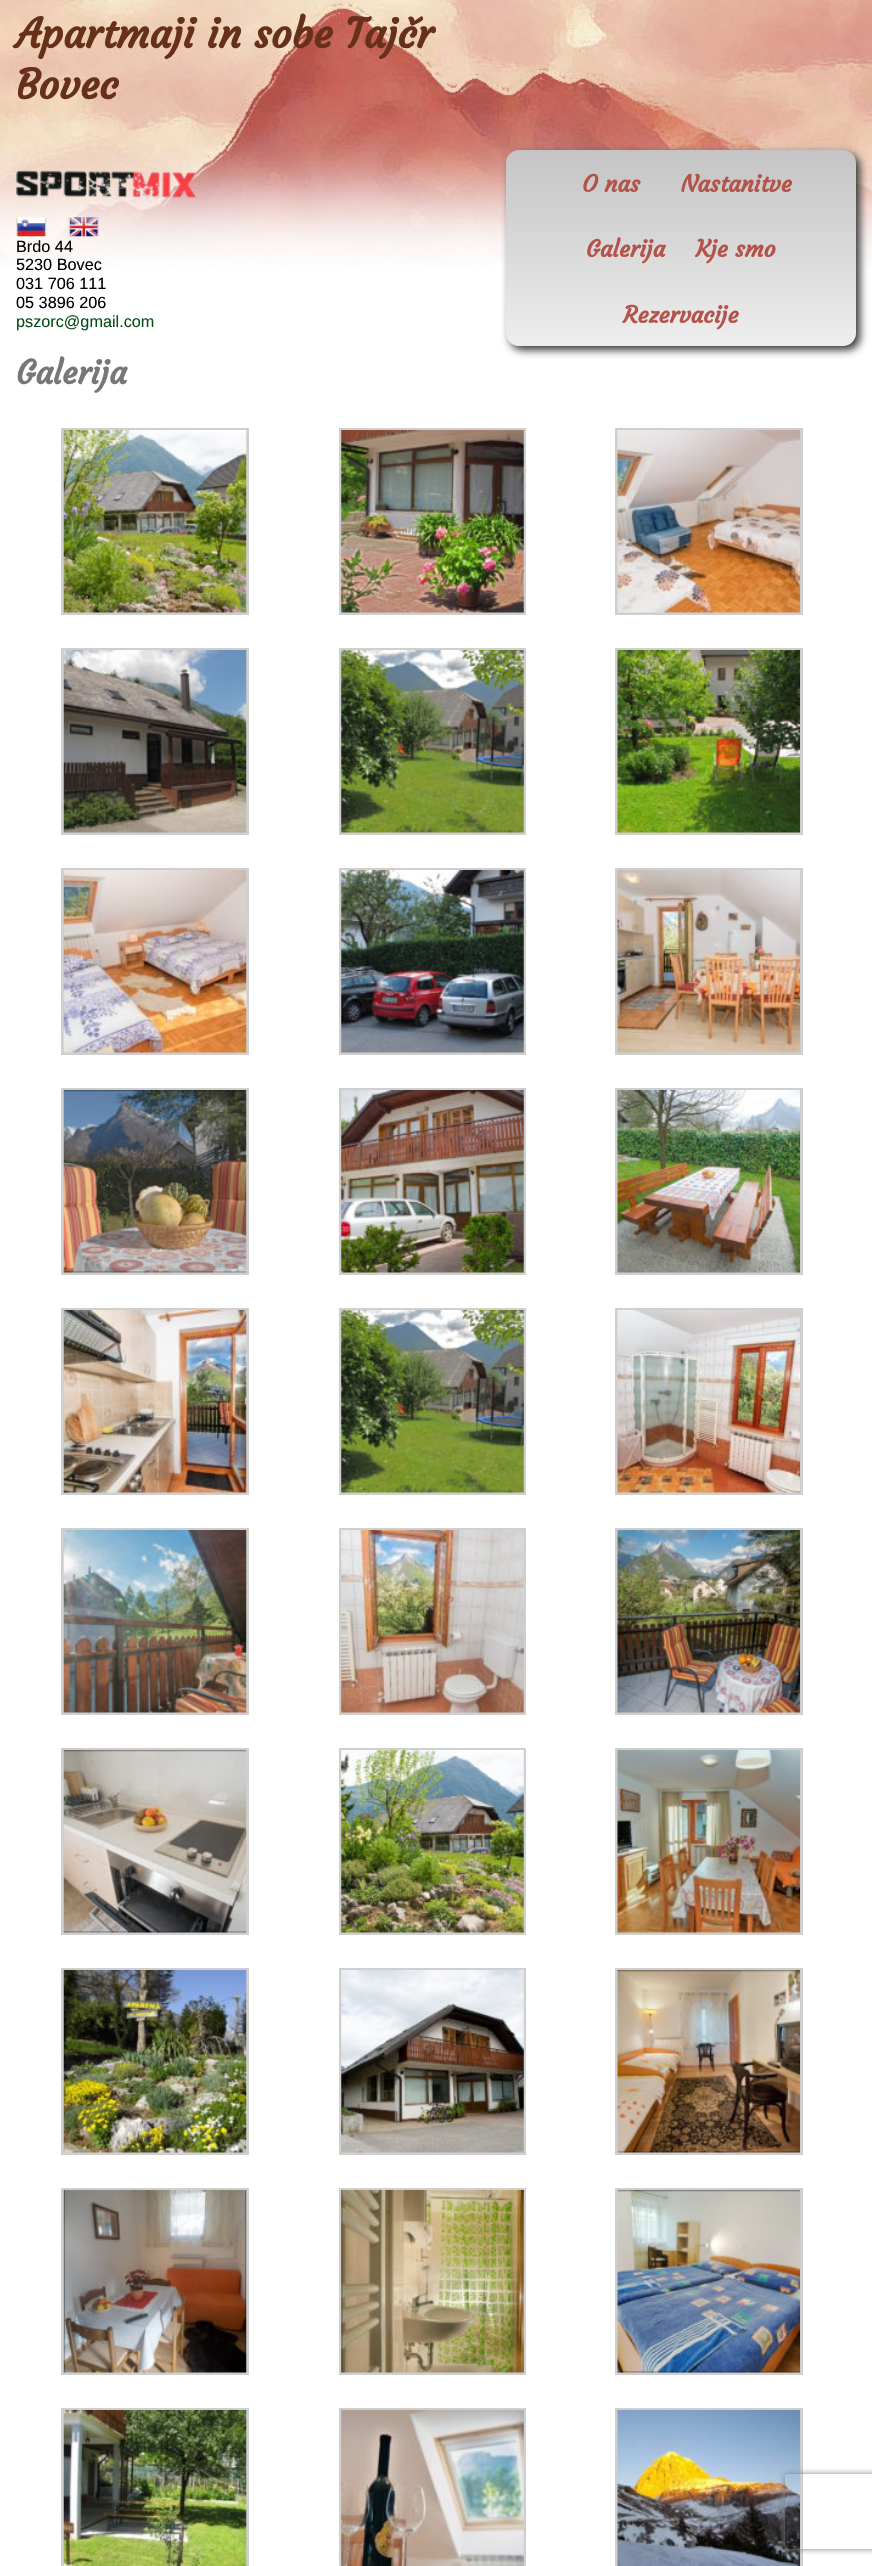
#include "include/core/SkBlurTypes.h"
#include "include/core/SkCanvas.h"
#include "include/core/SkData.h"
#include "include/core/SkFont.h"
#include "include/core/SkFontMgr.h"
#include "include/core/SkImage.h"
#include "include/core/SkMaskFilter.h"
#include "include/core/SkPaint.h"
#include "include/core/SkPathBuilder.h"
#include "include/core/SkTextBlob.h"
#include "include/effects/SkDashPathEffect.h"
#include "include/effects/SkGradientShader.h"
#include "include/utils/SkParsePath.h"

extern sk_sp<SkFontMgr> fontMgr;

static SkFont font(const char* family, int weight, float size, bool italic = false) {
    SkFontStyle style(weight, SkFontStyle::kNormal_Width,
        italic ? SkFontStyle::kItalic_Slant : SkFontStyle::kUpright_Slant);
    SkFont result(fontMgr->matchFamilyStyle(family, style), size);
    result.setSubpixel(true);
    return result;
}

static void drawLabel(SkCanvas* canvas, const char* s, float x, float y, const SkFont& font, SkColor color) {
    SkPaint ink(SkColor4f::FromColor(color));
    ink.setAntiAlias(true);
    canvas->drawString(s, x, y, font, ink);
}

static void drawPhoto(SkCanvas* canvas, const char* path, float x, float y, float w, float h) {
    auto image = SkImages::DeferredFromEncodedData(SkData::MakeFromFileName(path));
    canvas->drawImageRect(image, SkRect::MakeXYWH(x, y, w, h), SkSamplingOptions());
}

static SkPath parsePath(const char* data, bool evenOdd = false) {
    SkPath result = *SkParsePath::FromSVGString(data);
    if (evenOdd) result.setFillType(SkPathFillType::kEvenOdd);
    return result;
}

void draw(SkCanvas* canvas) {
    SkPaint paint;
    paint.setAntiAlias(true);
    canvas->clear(0xFFFFFFFF);
    drawPhoto(canvas, "assets/img1.png", 0, 0, 872, 266);
    SkFont font1 = font("Courgette", 700, 40.6f);
    drawLabel(canvas, "Apartmaji in sobe Tajčr", 16, 48, font1, 0xFF66301A);
    drawLabel(canvas, "Bovec", 16, 99, font1, 0xFF66301A);
    drawPhoto(canvas, "assets/img2.png", 16, 170, 180, 28);
    drawPhoto(canvas, "assets/img3.png", 16, 217, 31, 20);
    drawPhoto(canvas, "assets/img4.png", 68, 217, 31, 20);
    SkFont font2 = font("Liberation Sans", 400, 16.25f);
    drawLabel(canvas, "Brdo 44", 16, 252, font2, 0xFF000000);
    drawLabel(canvas, "5230 Bovec", 16, 270, font2, 0xFF000000);
    drawLabel(canvas, "031 706 111", 16, 289, font2, 0xFF000000);
    drawLabel(canvas, "05 3896 206", 16, 308, font2, 0xFF000000);
    drawLabel(canvas, "pszorc@gmail.com", 16, 327, font2, 0xFF084D17);
    paint.setColor(0xFF333333);
    paint.setMaskFilter(SkMaskFilter::MakeBlur(kNormal_SkBlurStyle, 4.5f));
    canvas->drawRoundRect(SkRect::MakeXYWH(510, 154, 350, 196), 13, 13, paint);
    paint.setMaskFilter(nullptr);
    {
        const SkColor colors[] = {0xFFC4C4C4, 0xFFEEEEEE};
        const float stops[] = {0, 1};
        const SkPoint ends[] = {{681, 150}, {681, 346}};
        paint.setShader(SkGradientShader::MakeLinear(ends, colors, stops, 2, SkTileMode::kClamp));
        paint.setAlpha(255);
    }
    canvas->drawRoundRect(SkRect::MakeXYWH(506, 150, 350, 196), 13, 13, paint);
    SkFont font3 = font("Courgette", 700, 23.25f);
    drawLabel(canvas, "O nas", 582, 192, font3, 0xFFB4534A);
    drawLabel(canvas, "Nastanitve", 681, 192, font3, 0xFFB4534A);
    drawLabel(canvas, "Galerija", 586, 257, font3, 0xFFB4534A);
    drawLabel(canvas, "Kje smo", 696, 257, font3, 0xFFB4534A);
    drawLabel(canvas, "Rezervacije", 623, 323, font3, 0xFFB4534A);
    SkFont font4 = font("Courgette", 700, 32.5f);
    drawLabel(canvas, "Galerija", 16, 384, font4, 0xFF777777);
    paint.setStroke(true);
    paint.setStrokeWidth(3);
    paint.setShader(nullptr);
    paint.setColor(0xFFCFCFCF);
    canvas->drawRect(SkRect::MakeXYWH(62.5f, 429.5f, 185, 184), paint);
    drawPhoto(canvas, "assets/img5.png", 63, 430, 184, 183);
    canvas->drawRect(SkRect::MakeXYWH(340.5f, 429.5f, 184, 184), paint);
    drawPhoto(canvas, "assets/img6.png", 341, 430, 183, 183);
    canvas->drawRect(SkRect::MakeXYWH(616.5f, 429.5f, 185, 184), paint);
    drawPhoto(canvas, "assets/img7.png", 617, 430, 183, 183);
    canvas->drawRect(SkRect::MakeXYWH(62.5f, 649.5f, 185, 184), paint);
    drawPhoto(canvas, "assets/img8.png", 63, 650, 184, 183);
    canvas->drawRect(SkRect::MakeXYWH(340.5f, 649.5f, 184, 184), paint);
    drawPhoto(canvas, "assets/img9.png", 341, 650, 183, 183);
    canvas->drawRect(SkRect::MakeXYWH(616.5f, 649.5f, 185, 184), paint);
    drawPhoto(canvas, "assets/img10.png", 617, 650, 183, 183);
    canvas->drawRect(SkRect::MakeXYWH(62.5f, 869.5f, 185, 184), paint);
    drawPhoto(canvas, "assets/img11.png", 63, 870, 184, 183);
    canvas->drawRect(SkRect::MakeXYWH(340.5f, 869.5f, 184, 184), paint);
    drawPhoto(canvas, "assets/img12.png", 341, 870, 183, 183);
    canvas->drawRect(SkRect::MakeXYWH(616.5f, 869.5f, 185, 184), paint);
    drawPhoto(canvas, "assets/img13.png", 617, 870, 183, 183);
    canvas->drawRect(SkRect::MakeXYWH(62.5f, 1089.5f, 185, 184), paint);
    drawPhoto(canvas, "assets/img14.png", 63, 1090, 184, 183);
    canvas->drawRect(SkRect::MakeXYWH(340.5f, 1089.5f, 184, 184), paint);
    drawPhoto(canvas, "assets/img15.png", 341, 1090, 183, 183);
    canvas->drawRect(SkRect::MakeXYWH(616.5f, 1089.5f, 185, 184), paint);
    drawPhoto(canvas, "assets/img16.png", 617, 1090, 183, 183);
    canvas->drawRect(SkRect::MakeXYWH(62.5f, 1309.5f, 185, 184), paint);
    drawPhoto(canvas, "assets/img17.png", 63, 1310, 184, 183);
    canvas->drawRect(SkRect::MakeXYWH(340.5f, 1309.5f, 184, 184), paint);
    drawPhoto(canvas, "assets/img9.png", 341, 1310, 183, 183);
    canvas->drawRect(SkRect::MakeXYWH(616.5f, 1309.5f, 185, 184), paint);
    drawPhoto(canvas, "assets/img18.png", 617, 1310, 183, 183);
    canvas->drawRect(SkRect::MakeXYWH(62.5f, 1529.5f, 185, 184), paint);
    drawPhoto(canvas, "assets/img19.png", 63, 1530, 184, 183);
    canvas->drawRect(SkRect::MakeXYWH(340.5f, 1529.5f, 184, 184), paint);
    drawPhoto(canvas, "assets/img20.png", 341, 1530, 183, 183);
    canvas->drawRect(SkRect::MakeXYWH(616.5f, 1529.5f, 185, 184), paint);
    drawPhoto(canvas, "assets/img21.png", 617, 1530, 183, 183);
    canvas->drawRect(SkRect::MakeXYWH(62.5f, 1749.5f, 185, 184), paint);
    drawPhoto(canvas, "assets/img22.png", 63, 1750, 184, 183);
    canvas->drawRect(SkRect::MakeXYWH(340.5f, 1749.5f, 184, 184), paint);
    drawPhoto(canvas, "assets/img23.png", 341, 1750, 183, 183);
    canvas->drawRect(SkRect::MakeXYWH(616.5f, 1749.5f, 185, 184), paint);
    drawPhoto(canvas, "assets/img24.png", 617, 1750, 183, 183);
    canvas->drawRect(SkRect::MakeXYWH(62.5f, 1969.5f, 185, 184), paint);
    drawPhoto(canvas, "assets/img25.png", 63, 1970, 184, 183);
    canvas->drawRect(SkRect::MakeXYWH(340.5f, 1969.5f, 184, 184), paint);
    drawPhoto(canvas, "assets/img26.png", 341, 1970, 183, 183);
    canvas->drawRect(SkRect::MakeXYWH(616.5f, 1969.5f, 185, 184), paint);
    drawPhoto(canvas, "assets/img27.png", 617, 1970, 183, 183);
    canvas->drawRect(SkRect::MakeXYWH(62.5f, 2189.5f, 185, 184), paint);
    drawPhoto(canvas, "assets/img28.png", 63, 2190, 184, 183);
    canvas->drawRect(SkRect::MakeXYWH(340.5f, 2189.5f, 184, 184), paint);
    drawPhoto(canvas, "assets/img29.png", 341, 2190, 183, 183);
    canvas->drawRect(SkRect::MakeXYWH(616.5f, 2189.5f, 185, 184), paint);
    drawPhoto(canvas, "assets/img30.png", 617, 2190, 183, 183);
    canvas->drawRect(SkRect::MakeXYWH(62.5f, 2409.5f, 185, 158), paint);
    drawPhoto(canvas, "assets/img31.png", 63, 2410, 184, 156);
    canvas->drawRect(SkRect::MakeXYWH(340.5f, 2409.5f, 184, 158), paint);
    drawPhoto(canvas, "assets/img32.png", 341, 2410, 183, 156);
    canvas->drawRect(SkRect::MakeXYWH(616.5f, 2409.5f, 185, 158), paint);
    drawPhoto(canvas, "assets/img33.png", 617, 2410, 183, 156);
    canvas->save();
    canvas->clipPath(parsePath("M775 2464H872V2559H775ZM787.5 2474H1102.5C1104 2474 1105 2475 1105 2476.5V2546.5C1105 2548 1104 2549 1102.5 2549H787.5C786 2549 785 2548 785 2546.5V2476.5C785 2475 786 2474 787.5 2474Z", true), true);
    paint.setStroke(false);
    paint.setColor(0xFF808080);
    paint.setMaskFilter(SkMaskFilter::MakeBlur(kNormal_SkBlurStyle, 3));
    canvas->drawRoundRect(SkRect::MakeXYWH(785, 2474, 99, 75), 2.5f, 2.5f, paint);
    paint.setMaskFilter(nullptr);
    canvas->restore();
}
